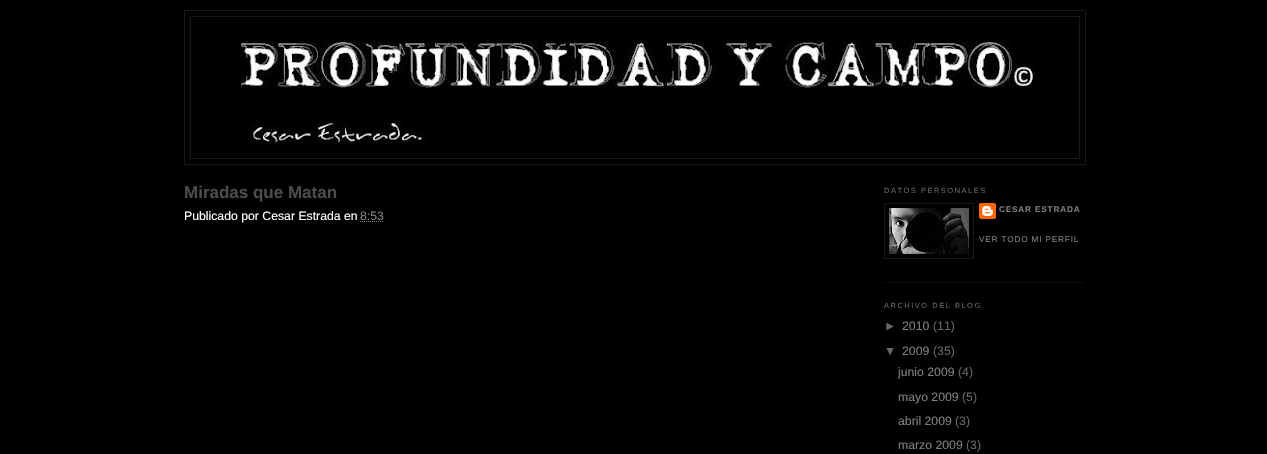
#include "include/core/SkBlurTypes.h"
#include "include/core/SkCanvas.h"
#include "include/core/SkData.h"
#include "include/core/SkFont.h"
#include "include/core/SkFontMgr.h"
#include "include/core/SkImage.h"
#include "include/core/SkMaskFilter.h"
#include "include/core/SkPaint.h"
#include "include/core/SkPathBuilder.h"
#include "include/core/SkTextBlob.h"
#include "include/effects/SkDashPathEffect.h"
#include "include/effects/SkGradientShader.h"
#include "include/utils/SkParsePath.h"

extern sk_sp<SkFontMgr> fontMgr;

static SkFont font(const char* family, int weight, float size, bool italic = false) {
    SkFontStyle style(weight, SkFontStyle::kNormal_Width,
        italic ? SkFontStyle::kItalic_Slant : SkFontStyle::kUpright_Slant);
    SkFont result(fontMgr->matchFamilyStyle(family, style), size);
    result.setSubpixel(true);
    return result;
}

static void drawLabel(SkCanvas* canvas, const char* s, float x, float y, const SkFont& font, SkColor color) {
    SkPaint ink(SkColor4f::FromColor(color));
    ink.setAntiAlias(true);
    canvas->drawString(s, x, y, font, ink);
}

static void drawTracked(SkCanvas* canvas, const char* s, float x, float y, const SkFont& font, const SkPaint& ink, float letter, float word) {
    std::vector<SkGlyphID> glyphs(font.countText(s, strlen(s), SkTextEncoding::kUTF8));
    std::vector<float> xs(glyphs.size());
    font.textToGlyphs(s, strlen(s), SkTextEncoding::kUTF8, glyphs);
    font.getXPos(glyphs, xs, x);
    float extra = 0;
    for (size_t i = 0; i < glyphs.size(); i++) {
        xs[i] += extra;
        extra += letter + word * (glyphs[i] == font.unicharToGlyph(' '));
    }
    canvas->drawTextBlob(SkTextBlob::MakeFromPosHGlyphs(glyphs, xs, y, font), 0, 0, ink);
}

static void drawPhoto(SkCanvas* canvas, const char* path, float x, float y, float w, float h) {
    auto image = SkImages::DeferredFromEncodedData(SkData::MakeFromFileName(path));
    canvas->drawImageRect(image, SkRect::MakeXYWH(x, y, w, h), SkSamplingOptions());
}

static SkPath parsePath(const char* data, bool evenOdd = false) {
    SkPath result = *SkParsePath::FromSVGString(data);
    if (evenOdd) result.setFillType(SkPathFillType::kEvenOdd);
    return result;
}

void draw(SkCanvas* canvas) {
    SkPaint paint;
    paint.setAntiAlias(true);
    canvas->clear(0xFF000000);
    paint.setStroke(true);
    paint.setStrokeWidth(1);
    paint.setColor(0xFF191919);
    canvas->drawRect(SkRect::MakeXYWH(184.5f, 10.5f, 901, 154), paint);
    canvas->drawRect(SkRect::MakeXYWH(190.5f, 16.5f, 889, 142), paint);
    drawPhoto(canvas, "assets/img1.png", 237, 39, 798, 106);
    SkFont font1 = font("Liberation Sans", 700, 17);
    drawLabel(canvas, "Miradas que Matan", 184, 198, font1, 0xFF4C4C4C);
    SkFont font2 = font("Liberation Sans", 400, 12.25f);
    drawLabel(canvas, "Publicado por Cesar Estrada en", 184, 220, font2, 0xFFFFFFFF);
    drawLabel(canvas, "8:53", 360, 220, font2, 0xFF808080);
    paint.setColor(0xFF808080);
    paint.setPathEffect(SkDashPathEffect::Make({{1, 1}}, 0));
    canvas->drawPath(parsePath("M360 221.5H384"), paint);
    paint.setPathEffect(nullptr);
    paint.setColor(0xFF191919);
    paint.setPathEffect(SkDashPathEffect::Make({{1, 1}}, 0));
    canvas->drawPath(parsePath("M884 282.5H1084"), paint);
    paint.setPathEffect(nullptr);
    SkFont font3 = font("Liberation Sans", 400, 7.5f);
    paint.setStroke(false);
    paint.setColor(0xFF666666);
    drawTracked(canvas, "DATOS PERSONALES", 884, 193, font3, paint, 1.5f, 0);
    paint.setStroke(true);
    paint.setColor(0xFF191919);
    canvas->drawRect(SkRect::MakeXYWH(884.5f, 203.5f, 89, 55), paint);
    drawPhoto(canvas, "assets/img2.png", 889, 208, 80, 46);
    drawPhoto(canvas, "assets/img3.png", 979, 203, 17, 16);
    SkFont font4 = font("Liberation Sans", 700, 8.25f);
    paint.setStroke(false);
    paint.setColor(0xFF808080);
    drawTracked(canvas, "CESAR ESTRADA", 999, 212, font4, paint, 0.8f, 0);
    SkFont font5 = font("Liberation Sans", 400, 8.25f);
    drawTracked(canvas, "VER TODO MI PERFIL", 979, 242, font5, paint, 0.8f, 0);
    paint.setColor(0xFF666666);
    drawTracked(canvas, "ARCHIVO DEL BLOG", 884, 308, font3, paint, 1.5f, 0);
    drawLabel(canvas, "►", 884, 330, font2, 0xFF666666);
    drawLabel(canvas, "2010", 902, 330, font2, 0xFF808080);
    drawLabel(canvas, "(11)", 933, 330, font2, 0xFF666666);
    drawLabel(canvas, "▼", 884, 355, font2, 0xFF666666);
    drawLabel(canvas, "2009", 902, 355, font2, 0xFF808080);
    drawLabel(canvas, "(35)", 933, 355, font2, 0xFF666666);
    drawLabel(canvas, "junio 2009", 898, 376, font2, 0xFF808080);
    drawLabel(canvas, "(4)", 958, 376, font2, 0xFF666666);
    drawLabel(canvas, "mayo 2009", 898, 401, font2, 0xFF808080);
    drawLabel(canvas, "(5)", 962, 401, font2, 0xFF666666);
    drawLabel(canvas, "abril 2009", 898, 425, font2, 0xFF808080);
    drawLabel(canvas, "(3)", 955, 425, font2, 0xFF666666);
    drawLabel(canvas, "marzo 2009", 898, 449, font2, 0xFF808080);
    drawLabel(canvas, "(3)", 966, 449, font2, 0xFF666666);
}
